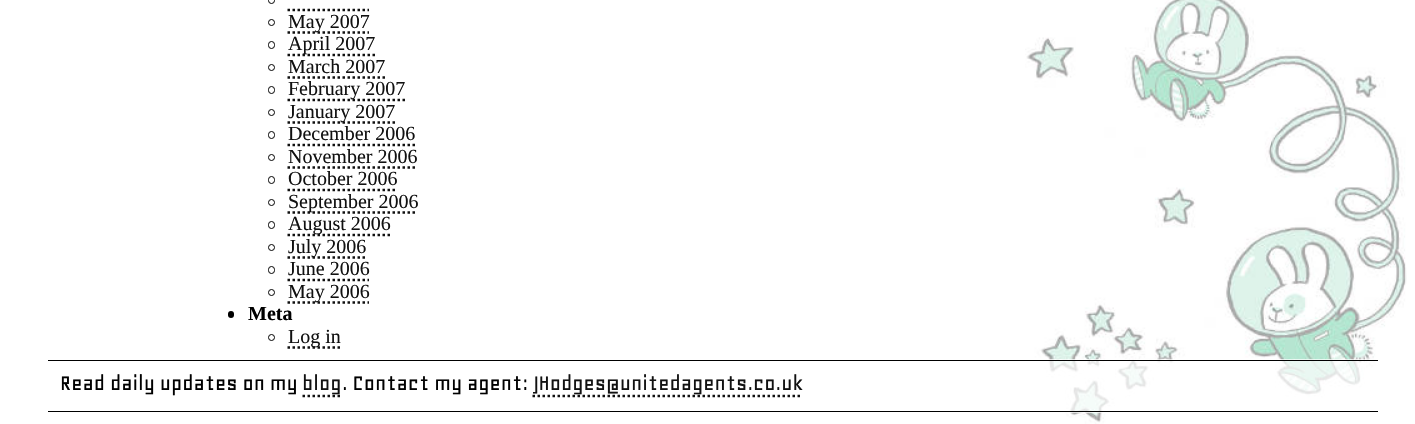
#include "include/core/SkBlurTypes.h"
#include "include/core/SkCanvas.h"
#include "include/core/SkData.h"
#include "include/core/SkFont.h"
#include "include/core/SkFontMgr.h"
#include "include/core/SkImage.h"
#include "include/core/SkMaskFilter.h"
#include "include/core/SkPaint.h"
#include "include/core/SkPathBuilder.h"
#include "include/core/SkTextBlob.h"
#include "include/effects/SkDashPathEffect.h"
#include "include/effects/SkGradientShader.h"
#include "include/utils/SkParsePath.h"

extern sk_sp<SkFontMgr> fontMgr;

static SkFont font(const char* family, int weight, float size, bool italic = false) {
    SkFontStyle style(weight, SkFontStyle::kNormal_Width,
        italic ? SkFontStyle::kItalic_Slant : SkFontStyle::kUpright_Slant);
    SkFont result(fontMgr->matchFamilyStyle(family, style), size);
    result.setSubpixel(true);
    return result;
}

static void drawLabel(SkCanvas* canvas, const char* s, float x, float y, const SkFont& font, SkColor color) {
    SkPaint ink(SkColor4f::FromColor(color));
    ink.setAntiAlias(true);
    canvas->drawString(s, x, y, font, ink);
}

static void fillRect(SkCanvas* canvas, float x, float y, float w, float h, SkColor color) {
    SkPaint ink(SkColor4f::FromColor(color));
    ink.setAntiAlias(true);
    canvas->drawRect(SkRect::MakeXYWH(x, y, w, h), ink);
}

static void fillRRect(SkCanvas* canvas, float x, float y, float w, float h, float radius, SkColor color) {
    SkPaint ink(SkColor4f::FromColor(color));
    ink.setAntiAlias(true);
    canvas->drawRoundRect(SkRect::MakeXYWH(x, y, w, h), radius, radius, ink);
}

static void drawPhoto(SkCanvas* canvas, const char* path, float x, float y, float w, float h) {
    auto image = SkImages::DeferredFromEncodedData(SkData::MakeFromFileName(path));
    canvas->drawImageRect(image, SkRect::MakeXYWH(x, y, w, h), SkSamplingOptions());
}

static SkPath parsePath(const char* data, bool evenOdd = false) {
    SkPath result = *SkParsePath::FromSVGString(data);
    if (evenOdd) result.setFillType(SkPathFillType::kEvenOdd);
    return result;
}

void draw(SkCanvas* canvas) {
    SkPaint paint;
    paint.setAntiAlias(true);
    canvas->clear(0xFFFFFFFF);
    drawPhoto(canvas, "assets/img1.png", 1025, 0, 382, 424);
    paint.setStroke(true);
    paint.setStrokeWidth(1);
    paint.setColor(0xFF000000);
    canvas->drawRoundRect(SkRect::MakeXYWH(268.5f, -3.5f, 6, 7), 3, 3, paint);
    paint.setStrokeWidth(2.5f);
    paint.setColor(0xFF111111);
    paint.setPathEffect(SkDashPathEffect::Make({{2.5f, 2.5f}}, 0));
    canvas->drawPath(parsePath("M287.5 10H369"), paint);
    paint.setPathEffect(nullptr);
    paint.setStrokeWidth(1);
    paint.setColor(0xFF000000);
    canvas->drawCircle(271.5f, 22.5f, 3, paint);
    paint.setStrokeWidth(2.5f);
    paint.setColor(0xFF111111);
    paint.setPathEffect(SkDashPathEffect::Make({{2.5f, 2.5f}}, 0));
    canvas->drawPath(parsePath("M287.5 32.5H369"), paint);
    paint.setPathEffect(nullptr);
    SkFont font1 = font("Liberation Serif", 400, 20);
    drawLabel(canvas, "May 2007", 288, 28, font1, 0xFF111111);
    paint.setStrokeWidth(1);
    paint.setColor(0xFF000000);
    canvas->drawRoundRect(SkRect::MakeXYWH(268.5f, 41.5f, 6, 7), 3, 3, paint);
    paint.setStrokeWidth(2.5f);
    paint.setColor(0xFF111111);
    paint.setPathEffect(SkDashPathEffect::Make({{2.5f, 2.5f}}, 0));
    canvas->drawPath(parsePath("M287.5 55H375"), paint);
    paint.setPathEffect(nullptr);
    drawLabel(canvas, "April 2007", 288, 50, font1, 0xFF111111);
    paint.setStrokeWidth(1);
    paint.setColor(0xFF000000);
    canvas->drawCircle(271.5f, 67.5f, 3, paint);
    drawLabel(canvas, "March 2007", 288, 73, font1, 0xFF111111);
    paint.setStrokeWidth(2.5f);
    paint.setColor(0xFF111111);
    paint.setPathEffect(SkDashPathEffect::Make({{2.5f, 2.5f}}, 0));
    canvas->drawPath(parsePath("M287.5 77.5H385"), paint);
    paint.setPathEffect(nullptr);
    paint.setStrokeWidth(1);
    paint.setColor(0xFF000000);
    canvas->drawRoundRect(SkRect::MakeXYWH(268.5f, 86.5f, 6, 7), 3, 3, paint);
    paint.setStrokeWidth(2.5f);
    paint.setColor(0xFF111111);
    paint.setPathEffect(SkDashPathEffect::Make({{2.5f, 2.5f}}, 0));
    canvas->drawPath(parsePath("M287.5 100H405"), paint);
    paint.setPathEffect(nullptr);
    drawLabel(canvas, "February 2007", 288, 95, font1, 0xFF111111);
    paint.setStrokeWidth(1);
    paint.setColor(0xFF000000);
    canvas->drawCircle(271.5f, 112.5f, 3, paint);
    paint.setStrokeWidth(2.5f);
    paint.setColor(0xFF111111);
    paint.setPathEffect(SkDashPathEffect::Make({{2.5f, 2.5f}}, 0));
    canvas->drawPath(parsePath("M287.5 122.5H395"), paint);
    paint.setPathEffect(nullptr);
    drawLabel(canvas, "January 2007", 288, 118, font1, 0xFF111111);
    paint.setStrokeWidth(1);
    paint.setColor(0xFF000000);
    canvas->drawRoundRect(SkRect::MakeXYWH(268.5f, 131.5f, 6, 7), 3, 3, paint);
    drawLabel(canvas, "December 2006", 288, 140, font1, 0xFF111111);
    paint.setStrokeWidth(2.5f);
    paint.setColor(0xFF111111);
    paint.setPathEffect(SkDashPathEffect::Make({{2.5f, 2.5f}}, 0));
    canvas->drawPath(parsePath("M287.5 145H415"), paint);
    paint.setPathEffect(nullptr);
    paint.setStrokeWidth(1);
    paint.setColor(0xFF000000);
    canvas->drawCircle(271.5f, 157.5f, 3, paint);
    drawLabel(canvas, "November 2006", 288, 163, font1, 0xFF111111);
    paint.setStrokeWidth(2.5f);
    paint.setColor(0xFF111111);
    paint.setPathEffect(SkDashPathEffect::Make({{2.5f, 2.5f}}, 0));
    canvas->drawPath(parsePath("M287.5 167.5H417.5"), paint);
    paint.setPathEffect(nullptr);
    paint.setStrokeWidth(1);
    paint.setColor(0xFF000000);
    canvas->drawRoundRect(SkRect::MakeXYWH(268.5f, 176.5f, 6, 7), 3, 3, paint);
    drawLabel(canvas, "October 2006", 288, 185, font1, 0xFF111111);
    paint.setStrokeWidth(2.5f);
    paint.setColor(0xFF111111);
    paint.setPathEffect(SkDashPathEffect::Make({{2.5f, 2.5f}}, 0));
    canvas->drawPath(parsePath("M287.5 190H397.5"), paint);
    paint.setPathEffect(nullptr);
    paint.setStrokeWidth(1);
    paint.setColor(0xFF000000);
    canvas->drawCircle(271.5f, 202.5f, 3, paint);
    paint.setStrokeWidth(2.5f);
    paint.setColor(0xFF111111);
    paint.setPathEffect(SkDashPathEffect::Make({{2.5f, 2.5f}}, 0));
    canvas->drawPath(parsePath("M287.5 212.5H417.5"), paint);
    paint.setPathEffect(nullptr);
    drawLabel(canvas, "September 2006", 288, 208, font1, 0xFF111111);
    paint.setStrokeWidth(1);
    paint.setColor(0xFF000000);
    canvas->drawRoundRect(SkRect::MakeXYWH(268.5f, 221.5f, 6, 7), 3, 3, paint);
    paint.setStrokeWidth(2.5f);
    paint.setColor(0xFF111111);
    paint.setPathEffect(SkDashPathEffect::Make({{2.5f, 2.5f}}, 0));
    canvas->drawPath(parsePath("M287.5 235H390"), paint);
    paint.setPathEffect(nullptr);
    drawLabel(canvas, "August 2006", 288, 230, font1, 0xFF111111);
    paint.setStrokeWidth(1);
    paint.setColor(0xFF000000);
    canvas->drawCircle(271.5f, 247.5f, 3, paint);
    paint.setStrokeWidth(2.5f);
    paint.setColor(0xFF111111);
    paint.setPathEffect(SkDashPathEffect::Make({{2.5f, 2.5f}}, 0));
    canvas->drawPath(parsePath("M287.5 257.5H366"), paint);
    paint.setPathEffect(nullptr);
    drawLabel(canvas, "July 2006", 288, 253, font1, 0xFF111111);
    paint.setStrokeWidth(1);
    paint.setColor(0xFF000000);
    canvas->drawRoundRect(SkRect::MakeXYWH(268.5f, 266.5f, 6, 7), 3, 3, paint);
    drawLabel(canvas, "June 2006", 288, 275, font1, 0xFF111111);
    paint.setStrokeWidth(2.5f);
    paint.setColor(0xFF111111);
    paint.setPathEffect(SkDashPathEffect::Make({{2.5f, 2.5f}}, 0));
    canvas->drawPath(parsePath("M287.5 280H369"), paint);
    paint.setPathEffect(nullptr);
    paint.setStrokeWidth(1);
    paint.setColor(0xFF000000);
    canvas->drawCircle(271.5f, 292.5f, 3, paint);
    paint.setStrokeWidth(2.5f);
    paint.setColor(0xFF111111);
    paint.setPathEffect(SkDashPathEffect::Make({{2.5f, 2.5f}}, 0));
    canvas->drawPath(parsePath("M287.5 302.5H369"), paint);
    paint.setPathEffect(nullptr);
    drawLabel(canvas, "May 2006", 288, 298, font1, 0xFF111111);
    fillRRect(canvas, 228, 311, 6, 7, 3, 0xFF000000);
    SkFont font2 = font("Liberation Serif", 700, 20);
    drawLabel(canvas, "Meta", 248, 320, font2, 0xFF000000);
    paint.setStrokeWidth(1);
    paint.setColor(0xFF000000);
    canvas->drawCircle(271.5f, 337.5f, 3, paint);
    paint.setStrokeWidth(2.5f);
    paint.setColor(0xFF111111);
    paint.setPathEffect(SkDashPathEffect::Make({{2.5f, 2.5f}}, 0));
    canvas->drawPath(parsePath("M287.5 347.5H340"), paint);
    paint.setPathEffect(nullptr);
    drawLabel(canvas, "Log in", 288, 343, font1, 0xFF111111);
    fillRect(canvas, 1045, 359, 321, 54, 0xB3FFFFFF);
    fillRect(canvas, 48, 360, 1330, 1, 0xFF000000);
    fillRect(canvas, 48, 411, 1330, 1, 0xFF000000);
    SkFont font3 = font("Geo", 500, 24);
    drawLabel(canvas, "Read daily updates on my", 60, 390, font3, 0xFF000000);
    paint.setPathEffect(SkDashPathEffect::Make({{2.5f, 2.5f}}, 0));
    canvas->drawPath(parsePath("M302.5 396H341"), paint);
    paint.setPathEffect(nullptr);
    drawLabel(canvas, "blog", 302, 390, font3, 0xFF111111);
    drawLabel(canvas, ". Contact my agent:", 342, 390, font3, 0xFF000000);
    paint.setPathEffect(SkDashPathEffect::Make({{2.5f, 2.5f}}, 0));
    canvas->drawPath(parsePath("M532.5 396H802.5"), paint);
    paint.setPathEffect(nullptr);
    drawLabel(canvas, "JHodges@unitedagents.co.uk", 533, 390, font3, 0xFF111111);
}
